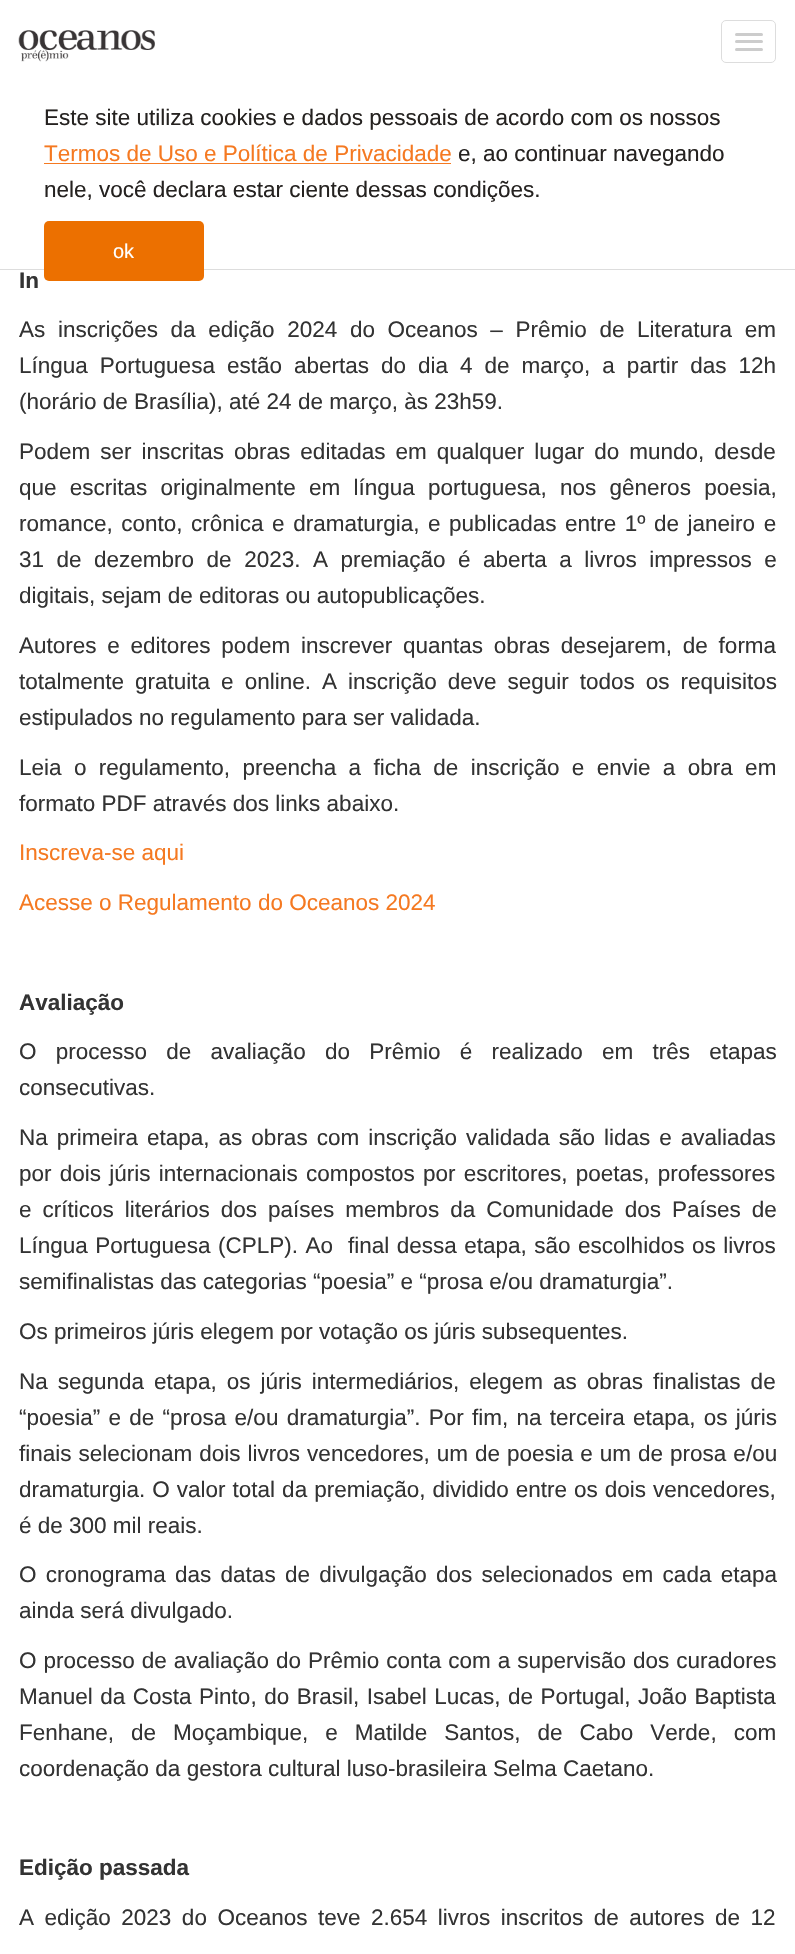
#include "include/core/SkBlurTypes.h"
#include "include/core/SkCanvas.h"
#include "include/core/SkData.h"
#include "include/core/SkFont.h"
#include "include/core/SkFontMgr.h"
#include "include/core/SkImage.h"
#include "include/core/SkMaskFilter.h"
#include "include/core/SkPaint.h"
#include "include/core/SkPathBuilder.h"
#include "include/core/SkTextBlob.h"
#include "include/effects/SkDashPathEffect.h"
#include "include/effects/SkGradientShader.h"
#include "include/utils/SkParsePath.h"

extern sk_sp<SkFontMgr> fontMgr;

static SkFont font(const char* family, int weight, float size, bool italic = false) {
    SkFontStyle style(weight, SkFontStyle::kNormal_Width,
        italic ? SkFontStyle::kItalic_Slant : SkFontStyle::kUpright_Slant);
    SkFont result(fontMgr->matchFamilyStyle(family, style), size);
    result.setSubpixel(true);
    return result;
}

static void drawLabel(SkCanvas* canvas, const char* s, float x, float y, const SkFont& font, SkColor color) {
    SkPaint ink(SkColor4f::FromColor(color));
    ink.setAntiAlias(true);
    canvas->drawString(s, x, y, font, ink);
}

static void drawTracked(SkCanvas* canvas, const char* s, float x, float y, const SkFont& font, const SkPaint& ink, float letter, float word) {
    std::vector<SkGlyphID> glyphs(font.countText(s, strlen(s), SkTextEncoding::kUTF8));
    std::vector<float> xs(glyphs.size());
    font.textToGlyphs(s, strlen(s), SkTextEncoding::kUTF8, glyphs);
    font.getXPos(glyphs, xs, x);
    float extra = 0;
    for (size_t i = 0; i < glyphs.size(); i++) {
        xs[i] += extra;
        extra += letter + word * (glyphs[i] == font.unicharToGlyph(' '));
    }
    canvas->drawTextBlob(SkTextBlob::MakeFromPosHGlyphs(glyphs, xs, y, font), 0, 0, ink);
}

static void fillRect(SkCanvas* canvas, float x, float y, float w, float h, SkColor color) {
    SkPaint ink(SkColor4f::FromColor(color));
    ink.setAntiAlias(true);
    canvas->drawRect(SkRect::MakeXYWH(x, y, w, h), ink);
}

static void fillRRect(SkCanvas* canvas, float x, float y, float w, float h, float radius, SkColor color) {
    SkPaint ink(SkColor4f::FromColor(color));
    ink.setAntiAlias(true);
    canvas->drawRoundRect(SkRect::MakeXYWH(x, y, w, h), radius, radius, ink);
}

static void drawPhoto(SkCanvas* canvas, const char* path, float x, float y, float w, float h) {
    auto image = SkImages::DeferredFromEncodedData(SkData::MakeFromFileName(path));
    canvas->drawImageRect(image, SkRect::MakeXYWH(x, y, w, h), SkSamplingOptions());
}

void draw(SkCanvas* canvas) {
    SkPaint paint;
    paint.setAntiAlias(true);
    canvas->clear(0xFFFFFFFF);
    fillRect(canvas, 0, 269, 795, 1, 0xFFDDDDDD);
    drawPhoto(canvas, "assets/img1.png", 18, 30, 137, 32);
    paint.setStroke(true);
    paint.setStrokeWidth(1);
    paint.setColor(0xFFDDDDDD);
    canvas->drawRoundRect(SkRect::MakeXYWH(721.5f, 20.5f, 54, 42), 4.5f, 4.5f, paint);
    fillRRect(canvas, 735, 33, 28, 3, 1.5f, 0xFFCCCCCC);
    fillRRect(canvas, 735, 40, 28, 3, 1.5f, 0xFFCCCCCC);
    fillRRect(canvas, 735, 48, 28, 3, 1.5f, 0xFFCCCCCC);
    SkFont font1 = font("Liberation Sans", 400, 22.5f);
    drawLabel(canvas, "Este site utiliza cookies e dados pessoais de acordo com os nossos", 44, 125, font1, 0xFF252220);
    drawLabel(canvas, "Termos de Uso e Política de Privacidade", 44, 161, font1, 0xFFF57921);
    fillRect(canvas, 44, 163, 407, 1, 0xFFF57921);
    drawLabel(canvas, "e, ao continuar navegando", 458, 161, font1, 0xFF252220);
    drawLabel(canvas, "nele, você declara estar ciente dessas condições.", 44, 197, font1, 0xFF252220);
    fillRRect(canvas, 44, 221, 160, 60, 5, 0xFFEC7000);
    SkFont font2 = font("Liberation Sans", 400, 20);
    drawLabel(canvas, "ok", 113, 258, font2, 0xFFFFFFFF);
    SkFont font3 = font("Liberation Sans", 700, 22.5f);
    drawLabel(canvas, "In", 19, 288, font3, 0xFF333333);
    paint.setStroke(false);
    paint.setColor(0xFF333333);
    drawTracked(canvas, "As inscrições da edição 2024 do Oceanos – Prêmio de Literatura em", 19, 337, font1, paint, 0, 6.4f);
    drawTracked(canvas, "Língua Portuguesa estão abertas do dia 4 de março, a partir das 12h", 19, 373, font1, paint, 0, 5.75f);
    drawLabel(canvas, "(horário de Brasília), até 24 de março, às 23h59.", 19, 409, font1, 0xFF333333);
    drawTracked(canvas, "Podem ser inscritas obras editadas em qualquer lugar do mundo, desde", 19, 459, font1, paint, 0, 3.75f);
    drawTracked(canvas, "que escritas originalmente em língua portuguesa, nos gêneros poesia,", 19, 495, font1, paint, 0, 7);
    drawTracked(canvas, "romance, conto, crônica e dramaturgia, e publicadas entre 1º de janeiro e", 19, 531, font1, paint, 0, 2.25f);
    drawTracked(canvas, "31 de dezembro de 2023. A premiação é aberta a livros impressos e", 19, 567, font1, paint, 0, 6.25f);
    drawLabel(canvas, "digitais, sejam de editoras ou autopublicações.", 19, 603, font1, 0xFF333333);
    drawTracked(canvas, "Autores e editores podem inscrever quantas obras desejarem, de forma", 19, 653, font1, paint, 0, 4.5f);
    drawTracked(canvas, "totalmente gratuita e online. A inscrição deve seguir todos os requisitos", 19, 689, font1, paint, 0, 4.75f);
    drawLabel(canvas, "estipulados no regulamento para ser validada.", 19, 725, font1, 0xFF333333);
    drawTracked(canvas, "Leia o regulamento, preencha a ficha de inscrição e envie a obra em", 19, 775, font1, paint, 0, 6.1f);
    drawLabel(canvas, "formato PDF através dos links abaixo.", 19, 811, font1, 0xFF333333);
    drawLabel(canvas, "Inscreva-se aqui", 19, 860, font1, 0xFFF57921);
    drawLabel(canvas, "Acesse o Regulamento do Oceanos 2024", 19, 910, font1, 0xFFF57921);
    drawLabel(canvas, "Avaliação", 19, 1010, font3, 0xFF333333);
    drawTracked(canvas, "O processo de avaliação do Prêmio é realizado em três etapas", 19, 1059, font1, paint, 0, 13);
    drawLabel(canvas, "consecutivas.", 19, 1095, font1, 0xFF333333);
    drawTracked(canvas, "Na primeira etapa, as obras com inscrição validada são lidas e avaliadas", 19, 1145, font1, paint, 0, 2.75f);
    drawTracked(canvas, "por dois júris internacionais compostos por escritores, poetas, professores", 19, 1181, font1, paint, 0, 2);
    drawTracked(canvas, "e críticos literários dos países membros da Comunidade dos Países de", 19, 1217, font1, paint, 0, 4.75f);
    drawTracked(canvas, "Língua Portuguesa (CPLP). Ao  final dessa etapa, são escolhidos os livros", 19, 1253, font1, paint, 0, 1.25f);
    drawLabel(canvas, "semifinalistas das categorias “poesia” e “prosa e/ou dramaturgia”.", 19, 1289, font1, 0xFF333333);
    drawLabel(canvas, "Os primeiros júris elegem por votação os júris subsequentes.", 19, 1339, font1, 0xFF333333);
    drawTracked(canvas, "Na segunda etapa, os júris intermediários, elegem as obras finalistas de", 19, 1389, font1, paint, 0, 3.75f);
    drawTracked(canvas, "“poesia” e de “prosa e/ou dramaturgia”. Por fim, na terceira etapa, os júris", 19, 1425, font1, paint, 0, 2);
    drawTracked(canvas, "finais selecionam dois livros vencedores, um de poesia e um de prosa e/ou", 19, 1461, font1, paint, 0, 0.75f);
    drawTracked(canvas, "dramaturgia. O valor total da premiação, dividido entre os dois vencedores,", 19, 1497, font1, paint, 0, 0.75f);
    drawLabel(canvas, "é de 300 mil reais.", 19, 1533, font1, 0xFF333333);
    drawTracked(canvas, "O cronograma das datas de divulgação dos selecionados em cada etapa", 19, 1582, font1, paint, 0, 3);
    drawLabel(canvas, "ainda será divulgado.", 19, 1618, font1, 0xFF333333);
    drawTracked(canvas, "O processo de avaliação do Prêmio conta com a supervisão dos curadores", 19, 1668, font1, paint, 0, 0.75f);
    drawTracked(canvas, "Manuel da Costa Pinto, do Brasil, Isabel Lucas, de Portugal, João Baptista", 19, 1704, font1, paint, 0, 1.25f);
    drawTracked(canvas, "Fenhane, de Moçambique, e Matilde Santos, de Cabo Verde, com", 19, 1740, font1, paint, 0, 10.75f);
    drawLabel(canvas, "coordenação da gestora cultural luso-brasileira Selma Caetano.", 19, 1776, font1, 0xFF333333);
    drawLabel(canvas, "Edição passada", 19, 1875, font3, 0xFF333333);
    drawTracked(canvas, "A edição 2023 do Oceanos teve 2.654 livros inscritos de autores de 12", 19, 1925, font1, paint, 0, 4.25f);
}
